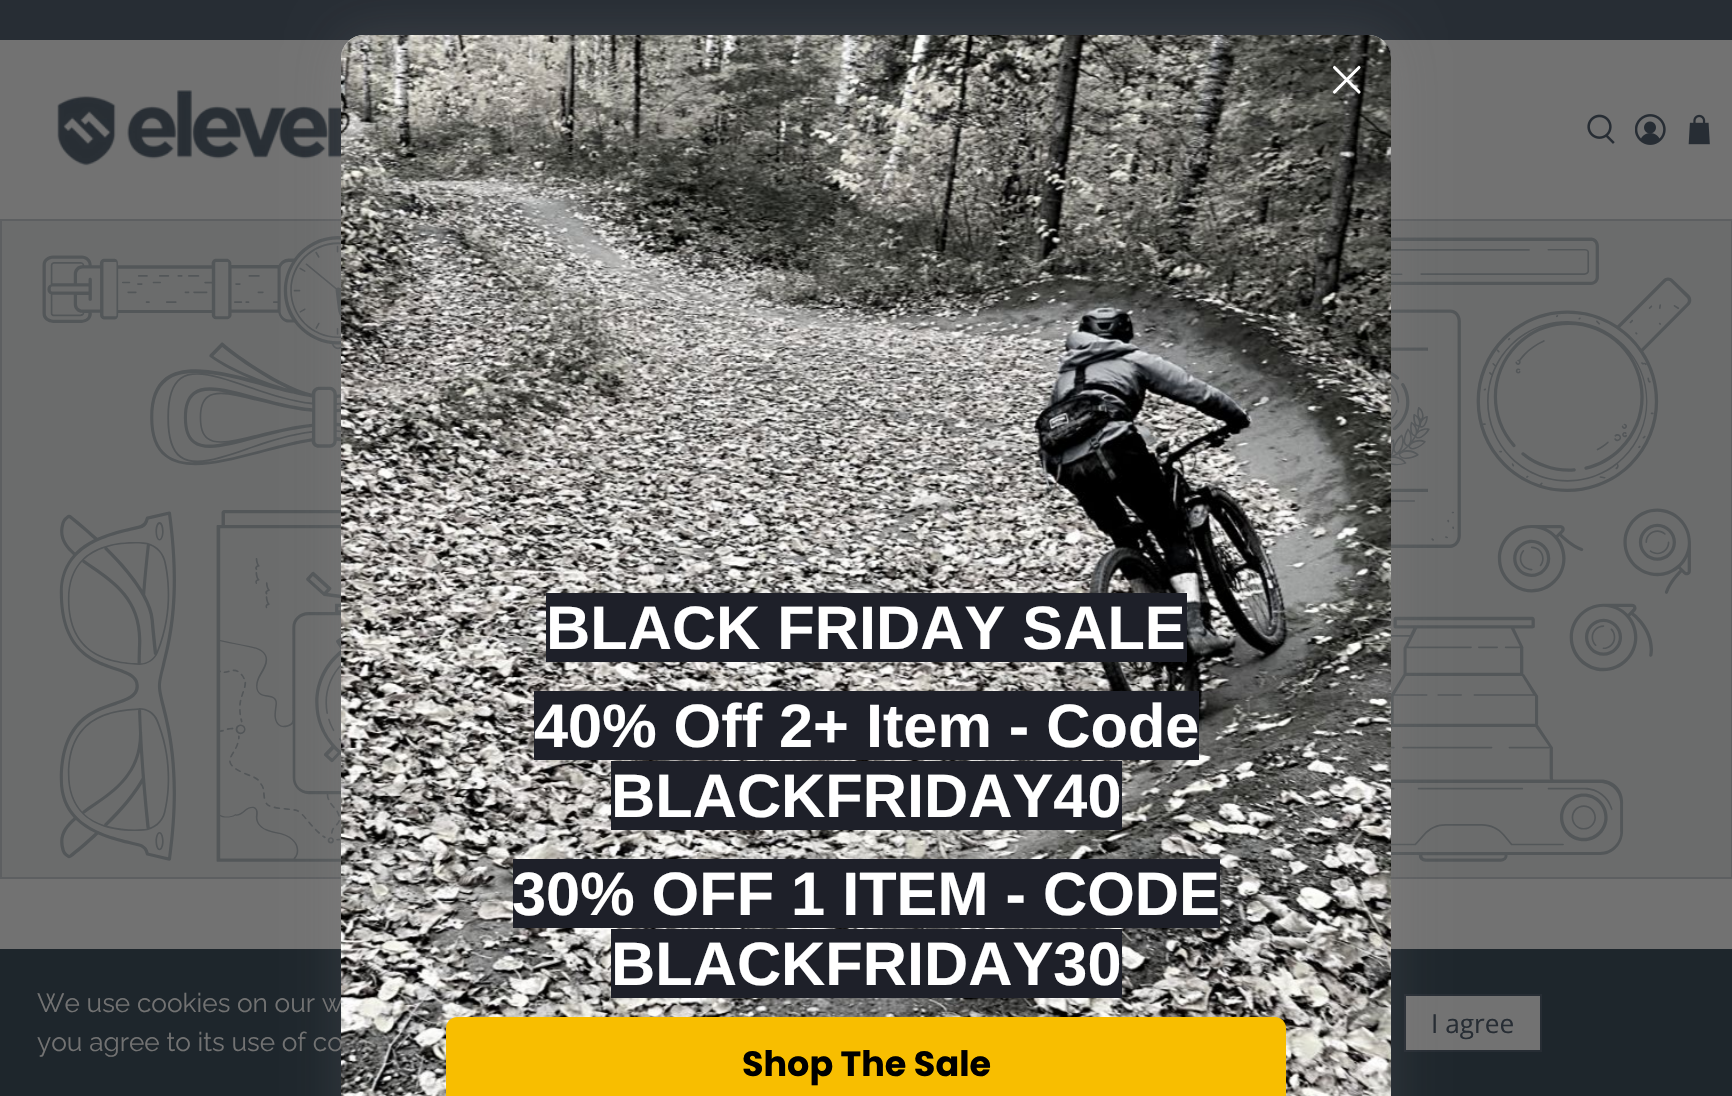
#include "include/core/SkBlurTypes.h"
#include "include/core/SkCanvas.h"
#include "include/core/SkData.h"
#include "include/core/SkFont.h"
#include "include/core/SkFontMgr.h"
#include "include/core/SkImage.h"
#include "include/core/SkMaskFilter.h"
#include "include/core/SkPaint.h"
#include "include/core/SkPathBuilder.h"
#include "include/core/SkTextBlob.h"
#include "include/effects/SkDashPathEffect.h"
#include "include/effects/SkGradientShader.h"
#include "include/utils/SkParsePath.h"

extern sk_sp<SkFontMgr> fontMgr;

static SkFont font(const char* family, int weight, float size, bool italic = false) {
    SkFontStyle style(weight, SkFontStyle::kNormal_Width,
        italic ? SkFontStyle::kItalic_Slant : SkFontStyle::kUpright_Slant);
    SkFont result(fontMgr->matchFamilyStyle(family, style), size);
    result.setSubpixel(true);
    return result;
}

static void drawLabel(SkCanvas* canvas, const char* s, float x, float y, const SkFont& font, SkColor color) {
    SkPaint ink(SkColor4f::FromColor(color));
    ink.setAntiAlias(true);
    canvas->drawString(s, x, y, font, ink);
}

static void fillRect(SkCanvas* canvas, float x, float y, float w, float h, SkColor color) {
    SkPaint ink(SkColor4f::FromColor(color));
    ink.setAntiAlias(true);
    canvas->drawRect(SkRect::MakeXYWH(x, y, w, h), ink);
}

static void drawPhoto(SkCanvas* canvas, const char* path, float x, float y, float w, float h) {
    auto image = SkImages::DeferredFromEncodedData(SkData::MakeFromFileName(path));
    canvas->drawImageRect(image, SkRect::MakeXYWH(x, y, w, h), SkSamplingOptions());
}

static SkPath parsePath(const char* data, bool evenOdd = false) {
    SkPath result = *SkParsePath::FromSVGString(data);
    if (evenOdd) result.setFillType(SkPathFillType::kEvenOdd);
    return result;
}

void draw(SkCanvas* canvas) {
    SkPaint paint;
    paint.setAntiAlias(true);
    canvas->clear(0xFF727272);
    fillRect(canvas, 0, 0, 1732, 40, 0xFF272D34);
    drawPhoto(canvas, "assets/img1.png", 57, 90, 284, 76);
    drawPhoto(canvas, "assets/img2.png", 1587, 114, 28, 30);
    drawPhoto(canvas, "assets/img3.png", 1635, 114, 31, 31);
    drawPhoto(canvas, "assets/img4.png", 1688, 114, 22, 31);
    paint.setColor(0xFF6B6C6C);
    canvas->drawRect(SkRect::MakeXYWH(1, 220, 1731, 658), paint);
    paint.setStroke(true);
    paint.setStrokeWidth(2);
    paint.setColor(0xFF5D5F61);
    canvas->drawRect(SkRect::MakeXYWH(1, 220, 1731, 658), paint);
    drawPhoto(canvas, "assets/img5.png", 42, 236, 1650, 626);
    fillRect(canvas, 0, 949, 1732, 147, 0xFF1E262C);
    paint.setStroke(false);
    paint.setColor(0xFF727272);
    canvas->drawRect(SkRect::MakeXYWH(1405, 995, 136, 56), paint);
    paint.setStroke(true);
    paint.setColor(0xFF272D34);
    canvas->drawRect(SkRect::MakeXYWH(1405, 995, 136, 56), paint);
    paint.setStroke(false);
    paint.setColor(0x26B8ADAD);
    paint.setMaskFilter(SkMaskFilter::MakeBlur(kNormal_SkBlurStyle, 26));
    canvas->drawRoundRect(SkRect::MakeXYWH(341, 35, 1050, 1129), 23, 23, paint);
    paint.setMaskFilter(nullptr);
    SkFont font1 = font("Raleway", 400, 26.25f);
    drawLabel(canvas, "We use cookies on our w", 37, 1012, font1, 0xFF727272);
    drawLabel(canvas, "you agree to its use of co", 37, 1051, font1, 0xFF727272);
    paint.setColor(0xFFFFFFFF);
    canvas->drawPath(parsePath("M364 35H1368C1380.5 35 1391 45.5 1391 58V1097H341V58C341 45.5 351.5 35 364 35Z"), paint);
    drawPhoto(canvas, "assets/img6.png", 341, 35, 1050, 1061);
    paint.setStroke(true);
    paint.setStrokeWidth(3.1f);
    paint.setStrokeCap(SkPaint::kRound_Cap);
    paint.setStrokeJoin(SkPaint::kRound_Join);
    canvas->drawPath(parsePath("M1334.5 67.5L1359 92M1334.5 92L1359 67.5Z"), paint);
    fillRect(canvas, 546, 593, 641, 69, 0xFF1E2029);
    SkFont font2 = font("Liberation Sans", 700, 61.25f);
    drawLabel(canvas, "BLACK FRIDAY SALE", 546, 649, font2, 0xFFFFFFFF);
    fillRect(canvas, 534, 691, 665, 69, 0xFF1E2029);
    drawLabel(canvas, "40% Off 2+ Item - Code", 534, 747, font2, 0xFFFFFFFF);
    fillRect(canvas, 611, 761, 511, 69, 0xFF1E2029);
    drawLabel(canvas, "BLACKFRIDAY40", 611, 817, font2, 0xFFFFFFFF);
    fillRect(canvas, 513, 859, 707, 69, 0xFF1E2029);
    drawLabel(canvas, "30% OFF 1 ITEM - CODE", 512, 915, font2, 0xFFFFFFFF);
    fillRect(canvas, 611, 929, 511, 69, 0xFF1E2029);
    drawLabel(canvas, "BLACKFRIDAY30", 611, 985, font2, 0xFFFFFFFF);
    paint.setStroke(false);
    paint.setColor(0xFFF8BE00);
    canvas->drawPath(parsePath("M457 1017H1275C1281 1017 1286 1022 1286 1028V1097H446V1028C446 1022 451 1017 457 1017Z"), paint);
    SkFont font3 = font("Poppins", 700, 35);
    drawLabel(canvas, "Shop The Sale", 742, 1076, font3, 0xFF000000);
    SkFont font4 = font("Open Sans", 400, 26.25f);
    drawLabel(canvas, "I agree", 1431, 1033, font4, 0xFF272D34);
}
